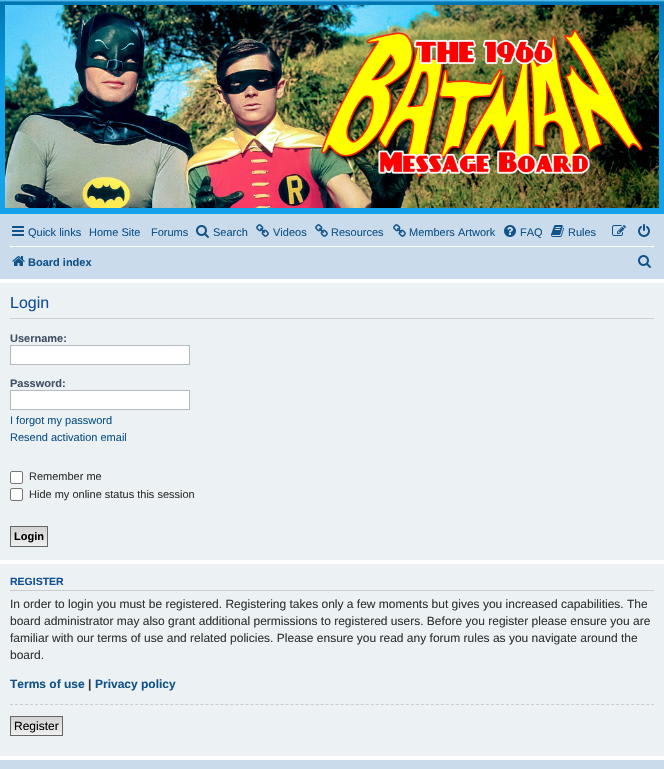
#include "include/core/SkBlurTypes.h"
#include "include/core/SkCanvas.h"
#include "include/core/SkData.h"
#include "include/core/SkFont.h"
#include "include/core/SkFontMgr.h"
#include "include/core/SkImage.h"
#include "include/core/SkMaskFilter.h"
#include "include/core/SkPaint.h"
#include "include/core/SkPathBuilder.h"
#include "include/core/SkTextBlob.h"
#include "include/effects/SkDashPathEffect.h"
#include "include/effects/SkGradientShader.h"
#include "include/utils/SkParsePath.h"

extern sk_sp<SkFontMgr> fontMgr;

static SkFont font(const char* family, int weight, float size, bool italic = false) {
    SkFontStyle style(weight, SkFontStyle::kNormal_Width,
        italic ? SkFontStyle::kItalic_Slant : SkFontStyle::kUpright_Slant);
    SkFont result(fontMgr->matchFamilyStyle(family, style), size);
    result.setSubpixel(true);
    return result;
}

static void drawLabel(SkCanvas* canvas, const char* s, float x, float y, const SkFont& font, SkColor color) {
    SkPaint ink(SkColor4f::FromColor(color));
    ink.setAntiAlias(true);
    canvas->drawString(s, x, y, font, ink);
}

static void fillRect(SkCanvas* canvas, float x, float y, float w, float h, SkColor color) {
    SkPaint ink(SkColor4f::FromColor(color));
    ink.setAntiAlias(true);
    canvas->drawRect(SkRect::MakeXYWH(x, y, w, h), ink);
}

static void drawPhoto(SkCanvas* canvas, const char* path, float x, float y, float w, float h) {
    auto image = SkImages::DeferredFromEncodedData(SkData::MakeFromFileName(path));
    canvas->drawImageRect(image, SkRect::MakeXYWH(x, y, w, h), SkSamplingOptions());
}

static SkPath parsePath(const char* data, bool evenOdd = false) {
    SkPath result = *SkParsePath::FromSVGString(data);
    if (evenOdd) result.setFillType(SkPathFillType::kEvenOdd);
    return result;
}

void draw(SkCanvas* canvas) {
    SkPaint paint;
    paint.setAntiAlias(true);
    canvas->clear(0xFFFFFFFF);
    {
        const SkColor colors[] = {0xFF6ACEFF, 0xFF0076B1, 0xFF12A3EB, 0xFF12A3EB};
        const float stops[] = {0, 0.01f, 0.43f, 1};
        const SkPoint ends[] = {{332, 0}, {332, 215}};
        paint.setShader(SkGradientShader::MakeLinear(ends, colors, stops, 4, SkTileMode::kClamp));
        paint.setAlpha(255);
    }
    canvas->drawRect(SkRect::MakeXYWH(0, 0, 664, 214), paint);
    drawPhoto(canvas, "assets/img1.png", 5, 5, 654, 203);
    fillRect(canvas, 0, 214, 664, 65, 0xFFCADCEB);
    drawPhoto(canvas, "assets/img2.png", 12, 226, 12, 10);
    SkFont font1 = font("Liberation Sans", 400, 11);
    drawLabel(canvas, "Quick links", 28, 236, font1, 0xFF105289);
    drawLabel(canvas, "Home Site", 89, 236, font1, 0xFF105289);
    drawLabel(canvas, "Forums", 151, 236, font1, 0xFF105289);
    drawPhoto(canvas, "assets/img3.png", 196, 225, 13, 13);
    drawLabel(canvas, "Search", 213, 236, font1, 0xFF105289);
    drawPhoto(canvas, "assets/img4.png", 256, 224, 13, 13);
    drawLabel(canvas, "Videos", 273, 236, font1, 0xFF105289);
    drawPhoto(canvas, "assets/img4.png", 315, 224, 13, 13);
    drawLabel(canvas, "Resources", 331, 236, font1, 0xFF105289);
    drawPhoto(canvas, "assets/img4.png", 393, 224, 13, 13);
    drawLabel(canvas, "Members Artwork", 409, 236, font1, 0xFF105289);
    drawPhoto(canvas, "assets/img5.png", 504, 225, 12, 12);
    drawLabel(canvas, "FAQ", 520, 236, font1, 0xFF105289);
    drawPhoto(canvas, "assets/img6.png", 551, 225, 13, 12);
    drawLabel(canvas, "Rules", 568, 236, font1, 0xFF105289);
    drawPhoto(canvas, "assets/img7.png", 612, 225, 14, 11);
    drawPhoto(canvas, "assets/img8.png", 638, 224, 12, 13);
    fillRect(canvas, 10, 246, 644, 1, 0xFFFFFFFF);
    drawPhoto(canvas, "assets/img9.png", 12, 256, 13, 10);
    SkFont font2 = font("Liberation Sans", 700, 11);
    drawLabel(canvas, "Board index", 28, 266, font2, 0xFF105289);
    drawPhoto(canvas, "assets/img3.png", 638, 255, 13, 13);
    fillRect(canvas, 0, 283, 664, 277, 0xFFECF1F3);
    fillRect(canvas, 10, 318, 644, 1, 0xFFCCCCCC);
    SkFont font3 = font("Liberation Sans", 400, 16);
    drawLabel(canvas, "Login", 10, 308, font3, 0xFF115098);
    drawLabel(canvas, "Username:", 10, 342, font2, 0xFF425067);
    paint.setShader(nullptr);
    paint.setColor(0xFFFFFFFF);
    canvas->drawRect(SkRect::MakeXYWH(10.5f, 345.5f, 179, 19), paint);
    paint.setStroke(true);
    paint.setStrokeWidth(1);
    paint.setColor(0xFFB4BAC0);
    canvas->drawRect(SkRect::MakeXYWH(10.5f, 345.5f, 179, 19), paint);
    drawLabel(canvas, "Password:", 10, 387, font2, 0xFF425067);
    paint.setStroke(false);
    paint.setColor(0xFFFFFFFF);
    canvas->drawRect(SkRect::MakeXYWH(10.5f, 390.5f, 179, 19), paint);
    paint.setStroke(true);
    paint.setColor(0xFFB4BAC0);
    canvas->drawRect(SkRect::MakeXYWH(10.5f, 390.5f, 179, 19), paint);
    drawLabel(canvas, "I forgot my password", 10, 424, font1, 0xFF105289);
    drawLabel(canvas, "Resend activation email", 10, 441, font1, 0xFF105289);
    paint.setStroke(false);
    paint.setColor(0xFFFFFFFF);
    canvas->drawRoundRect(SkRect::MakeXYWH(10.5f, 471.5f, 12, 12), 1.5f, 1.5f, paint);
    paint.setStroke(true);
    paint.setColor(0xFF767676);
    canvas->drawRoundRect(SkRect::MakeXYWH(10.5f, 471.5f, 12, 12), 1.5f, 1.5f, paint);
    drawLabel(canvas, "Remember me", 29, 480, font1, 0xFF333333);
    paint.setStroke(false);
    paint.setColor(0xFFFFFFFF);
    canvas->drawRoundRect(SkRect::MakeXYWH(10.5f, 488.5f, 12, 12), 1.5f, 1.5f, paint);
    paint.setStroke(true);
    paint.setColor(0xFF767676);
    canvas->drawRoundRect(SkRect::MakeXYWH(10.5f, 488.5f, 12, 12), 1.5f, 1.5f, paint);
    drawLabel(canvas, "Hide my online status this session", 29, 498, font1, 0xFF333333);
    paint.setStroke(false);
    {
        const SkColor colors[] = {0xFFD2D2D2, 0xFFEFEFEF};
        const float stops[] = {0, 1};
        const SkPoint ends[] = {{29, 527}, {29, 546}};
        paint.setShader(SkGradientShader::MakeLinear(ends, colors, stops, 2, SkTileMode::kClamp));
        paint.setAlpha(255);
    }
    canvas->drawRect(SkRect::MakeXYWH(11, 527, 36, 19), paint);
    paint.setStroke(true);
    paint.setShader(nullptr);
    paint.setColor(0xFF666666);
    canvas->drawRect(SkRect::MakeXYWH(10.5f, 526.5f, 37, 20), paint);
    drawLabel(canvas, "Login", 14, 540, font2, 0xFF000000);
    fillRect(canvas, 0, 564, 664, 192, 0xFFECF1F3);
    fillRect(canvas, 10, 590, 644, 1, 0xFFCCCCCC);
    SkFont font4 = font("Liberation Sans", 700, 10.5f);
    drawLabel(canvas, "REGISTER", 10, 585, font4, 0xFF115098);
    SkFont font5 = font("Liberation Sans", 400, 12);
    drawLabel(canvas, "In order to login you must be registered. Registering takes only a few moments but gives you increased capabilities. The", 10, 608, font5, 0xFF333333);
    drawLabel(canvas, "board administrator may also grant additional permissions to registered users. Before you register please ensure you are", 10, 625, font5, 0xFF333333);
    drawLabel(canvas, "familiar with our terms of use and related policies. Please ensure you read any forum rules as you navigate around the", 10, 642, font5, 0xFF333333);
    drawLabel(canvas, "board.", 10, 659, font5, 0xFF333333);
    SkFont font6 = font("Liberation Sans", 700, 12);
    drawLabel(canvas, "Terms of use", 10, 688, font6, 0xFF105289);
    drawLabel(canvas, "|", 88, 688, font6, 0xFF333333);
    drawLabel(canvas, "Privacy policy", 95, 688, font6, 0xFF105289);
    paint.setColor(0xFFCCCCCC);
    paint.setPathEffect(SkDashPathEffect::Make({{3, 2.01f}}, 0));
    canvas->drawPath(parsePath("M10 704.5H654"), paint);
    paint.setPathEffect(nullptr);
    paint.setStroke(false);
    {
        const SkColor colors[] = {0xFFD2D2D2, 0xFFEFEFEF};
        const float stops[] = {0, 1};
        const SkPoint ends[] = {{37, 717}, {37, 735}};
        paint.setShader(SkGradientShader::MakeLinear(ends, colors, stops, 2, SkTileMode::kClamp));
        paint.setAlpha(255);
    }
    canvas->drawRect(SkRect::MakeXYWH(11, 717, 51, 18), paint);
    paint.setStroke(true);
    paint.setShader(nullptr);
    paint.setColor(0xFF666666);
    canvas->drawRect(SkRect::MakeXYWH(10.5f, 716.5f, 52, 19), paint);
    drawLabel(canvas, "Register", 14, 730, font5, 0xFF000000);
    fillRect(canvas, 0, 760, 664, 9, 0xFFCADCEB);
}
